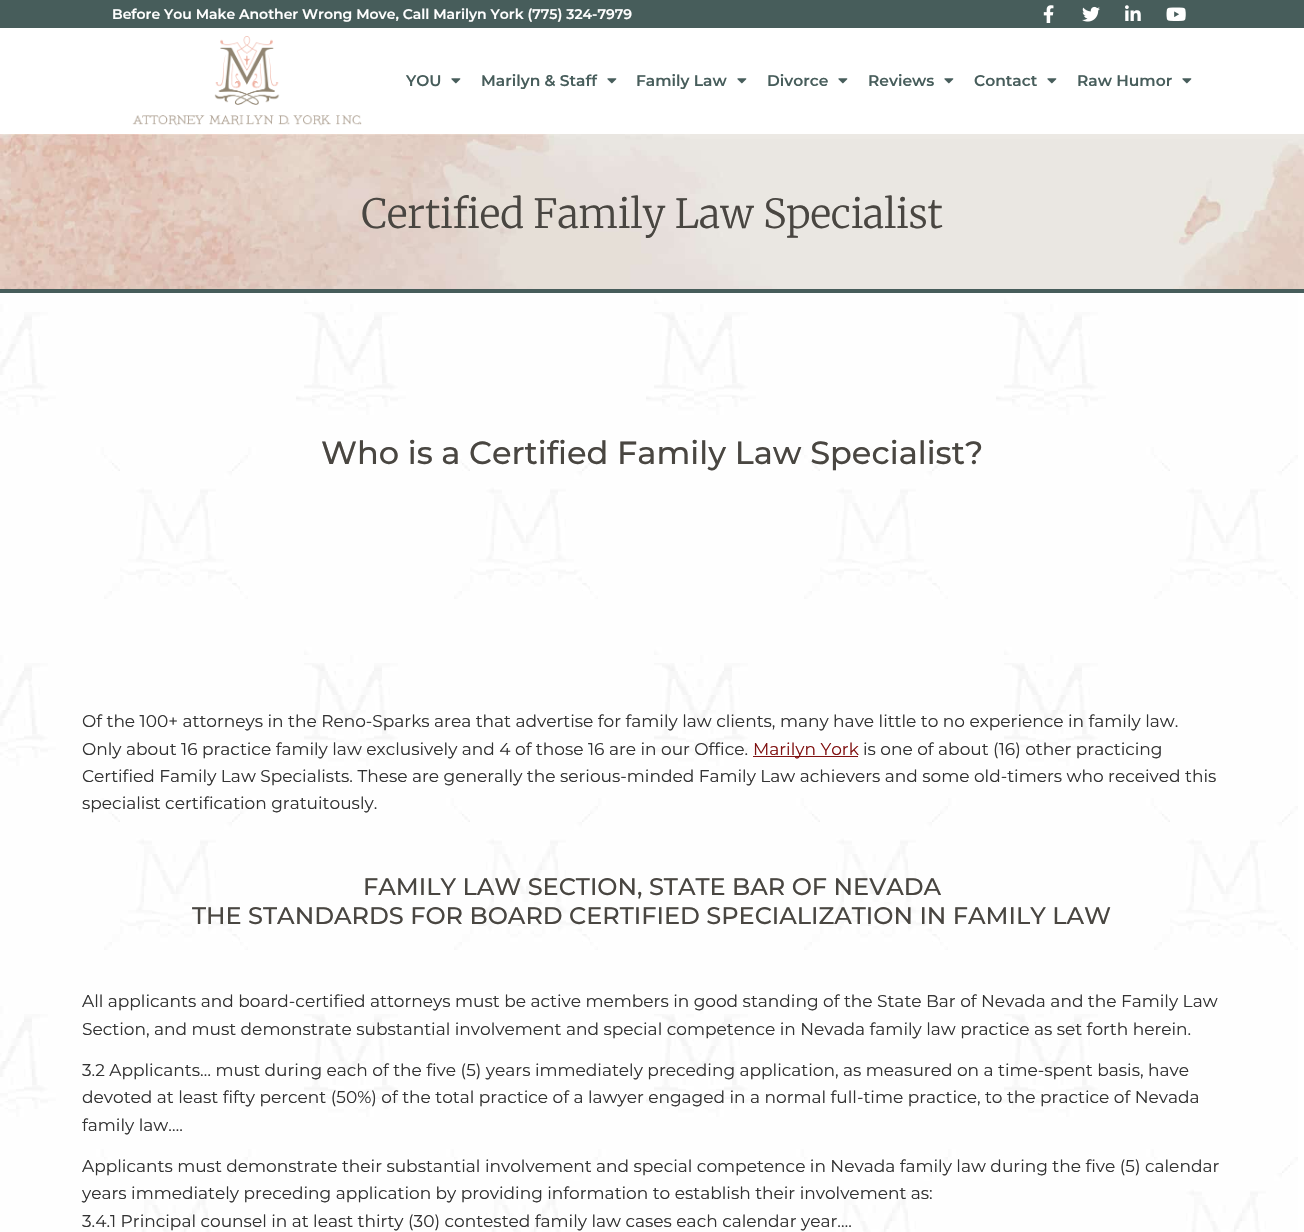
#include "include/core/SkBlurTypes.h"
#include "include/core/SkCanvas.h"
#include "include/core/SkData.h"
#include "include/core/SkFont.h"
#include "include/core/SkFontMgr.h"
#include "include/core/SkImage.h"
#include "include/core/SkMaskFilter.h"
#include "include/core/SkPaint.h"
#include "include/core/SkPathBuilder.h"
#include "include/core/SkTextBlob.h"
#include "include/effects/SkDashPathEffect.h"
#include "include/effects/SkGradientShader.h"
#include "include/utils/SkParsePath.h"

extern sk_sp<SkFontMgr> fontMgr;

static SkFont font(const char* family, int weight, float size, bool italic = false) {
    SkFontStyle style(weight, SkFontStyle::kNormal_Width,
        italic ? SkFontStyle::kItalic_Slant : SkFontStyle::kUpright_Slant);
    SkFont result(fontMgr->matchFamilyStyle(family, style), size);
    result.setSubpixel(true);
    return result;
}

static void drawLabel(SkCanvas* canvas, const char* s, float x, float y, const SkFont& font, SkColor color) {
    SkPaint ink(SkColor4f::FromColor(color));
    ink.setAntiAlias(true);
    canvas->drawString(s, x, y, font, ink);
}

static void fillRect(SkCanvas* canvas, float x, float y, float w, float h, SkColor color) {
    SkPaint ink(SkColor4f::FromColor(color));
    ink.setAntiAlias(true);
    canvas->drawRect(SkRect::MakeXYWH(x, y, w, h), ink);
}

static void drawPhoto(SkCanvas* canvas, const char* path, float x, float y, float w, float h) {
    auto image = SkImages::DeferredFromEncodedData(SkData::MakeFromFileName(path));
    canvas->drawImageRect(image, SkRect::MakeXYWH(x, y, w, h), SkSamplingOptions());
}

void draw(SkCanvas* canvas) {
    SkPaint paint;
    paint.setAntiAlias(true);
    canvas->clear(0xFFFFFFFF);
    drawPhoto(canvas, "assets/img1.png", 0, 293, 1298, 939);
    fillRect(canvas, 0, 0, 1304, 28, 0xFF475D5B);
    SkFont font1 = font("Montserrat", 600, 14);
    drawLabel(canvas, "Before You Make Another Wrong Move, Call Marilyn York (775) 324-7979", 112, 19, font1, 0xFFFFFFFF);
    drawPhoto(canvas, "assets/img2.png", 1043, 5, 11, 18);
    drawPhoto(canvas, "assets/img3.png", 1082, 6, 18, 16);
    drawPhoto(canvas, "assets/img4.png", 1125, 5, 16, 16);
    drawPhoto(canvas, "assets/img5.png", 1166, 7, 20, 14);
    drawPhoto(canvas, "assets/img6.png", 132, 36, 230, 90);
    SkFont font2 = font("Montserrat", 600, 15.5f);
    drawLabel(canvas, "YOU", 406, 86, font2, 0xFF475D5B);
    drawPhoto(canvas, "assets/img7.png", 451, 78, 10, 6);
    drawLabel(canvas, "Marilyn & Staff", 481, 86, font2, 0xFF475D5B);
    drawPhoto(canvas, "assets/img7.png", 607, 78, 10, 6);
    drawLabel(canvas, "Family Law", 636, 86, font2, 0xFF475D5B);
    drawPhoto(canvas, "assets/img7.png", 737, 78, 10, 6);
    drawLabel(canvas, "Divorce", 767, 86, font2, 0xFF475D5B);
    drawPhoto(canvas, "assets/img7.png", 838, 78, 10, 6);
    drawLabel(canvas, "Reviews", 868, 86, font2, 0xFF475D5B);
    drawPhoto(canvas, "assets/img7.png", 944, 78, 10, 6);
    drawLabel(canvas, "Contact", 974, 86, font2, 0xFF475D5B);
    drawPhoto(canvas, "assets/img7.png", 1047, 78, 10, 6);
    drawLabel(canvas, "Raw Humor", 1077, 86, font2, 0xFF475D5B);
    drawPhoto(canvas, "assets/img7.png", 1182, 78, 10, 6);
    drawPhoto(canvas, "assets/img8.png", 0, 134, 1304, 155);
    fillRect(canvas, 0, 289, 1304, 4, 0xFF475D5B);
    SkFont font3 = font("Merriweather", 300, 40);
    drawLabel(canvas, "Certified Family Law Specialist", 361, 228, font3, 0xFF494641);
    SkFont font4 = font("Montserrat", 500, 32);
    drawLabel(canvas, "Who is a Certified Family Law Specialist?", 321, 464, font4, 0xFF494641);
    SkFont font5 = font("Montserrat", 400, 17);
    drawLabel(canvas, "Of the 100+ attorneys in the Reno-Sparks area that advertise for family law clients, many have little to no experience in family law.", 82, 727, font5, 0xFF333333);
    drawLabel(canvas, "Only about 16 practice family law exclusively and 4 of those 16 are in our Office.", 82, 755, font5, 0xFF333333);
    fillRect(canvas, 753, 756, 105, 1, 0xFF801111);
    drawLabel(canvas, "Marilyn York", 753, 755, font5, 0xFF801111);
    drawLabel(canvas, "is one of about (16) other practicing", 863, 755, font5, 0xFF333333);
    drawLabel(canvas, "Certified Family Law Specialists. These are generally the serious-minded Family Law achievers and some old-timers who received this", 82, 782, font5, 0xFF333333);
    drawLabel(canvas, "specialist certification gratuitously.", 82, 809, font5, 0xFF333333);
    SkFont font6 = font("Montserrat", 500, 24);
    drawLabel(canvas, "FAMILY LAW SECTION, STATE BAR OF NEVADA", 363, 895, font6, 0xFF494641);
    drawLabel(canvas, "THE STANDARDS FOR BOARD CERTIFIED SPECIALIZATION IN FAMILY LAW", 192, 924, font6, 0xFF494641);
    drawLabel(canvas, "All applicants and board-certified attorneys must be active members in good standing of the State Bar of Nevada and the Family Law", 82, 1007, font5, 0xFF333333);
    drawLabel(canvas, "Section, and must demonstrate substantial involvement and special competence in Nevada family law practice as set forth herein.", 82, 1035, font5, 0xFF333333);
    drawLabel(canvas, "3.2 Applicants… must during each of the five (5) years immediately preceding application, as measured on a time-spent basis, have", 82, 1076, font5, 0xFF333333);
    drawLabel(canvas, "devoted at least fifty percent (50%) of the total practice of a lawyer engaged in a normal full-time practice, to the practice of Nevada", 82, 1103, font5, 0xFF333333);
    drawLabel(canvas, "family law….", 82, 1131, font5, 0xFF333333);
    drawLabel(canvas, "Applicants must demonstrate their substantial involvement and special competence in Nevada family law during the five (5) calendar", 82, 1172, font5, 0xFF333333);
    drawLabel(canvas, "years immediately preceding application by providing information to establish their involvement as:", 82, 1199, font5, 0xFF333333);
    drawLabel(canvas, "3.4.1 Principal counsel in at least thirty (30) contested family law cases each calendar year….", 82, 1227, font5, 0xFF333333);
}
